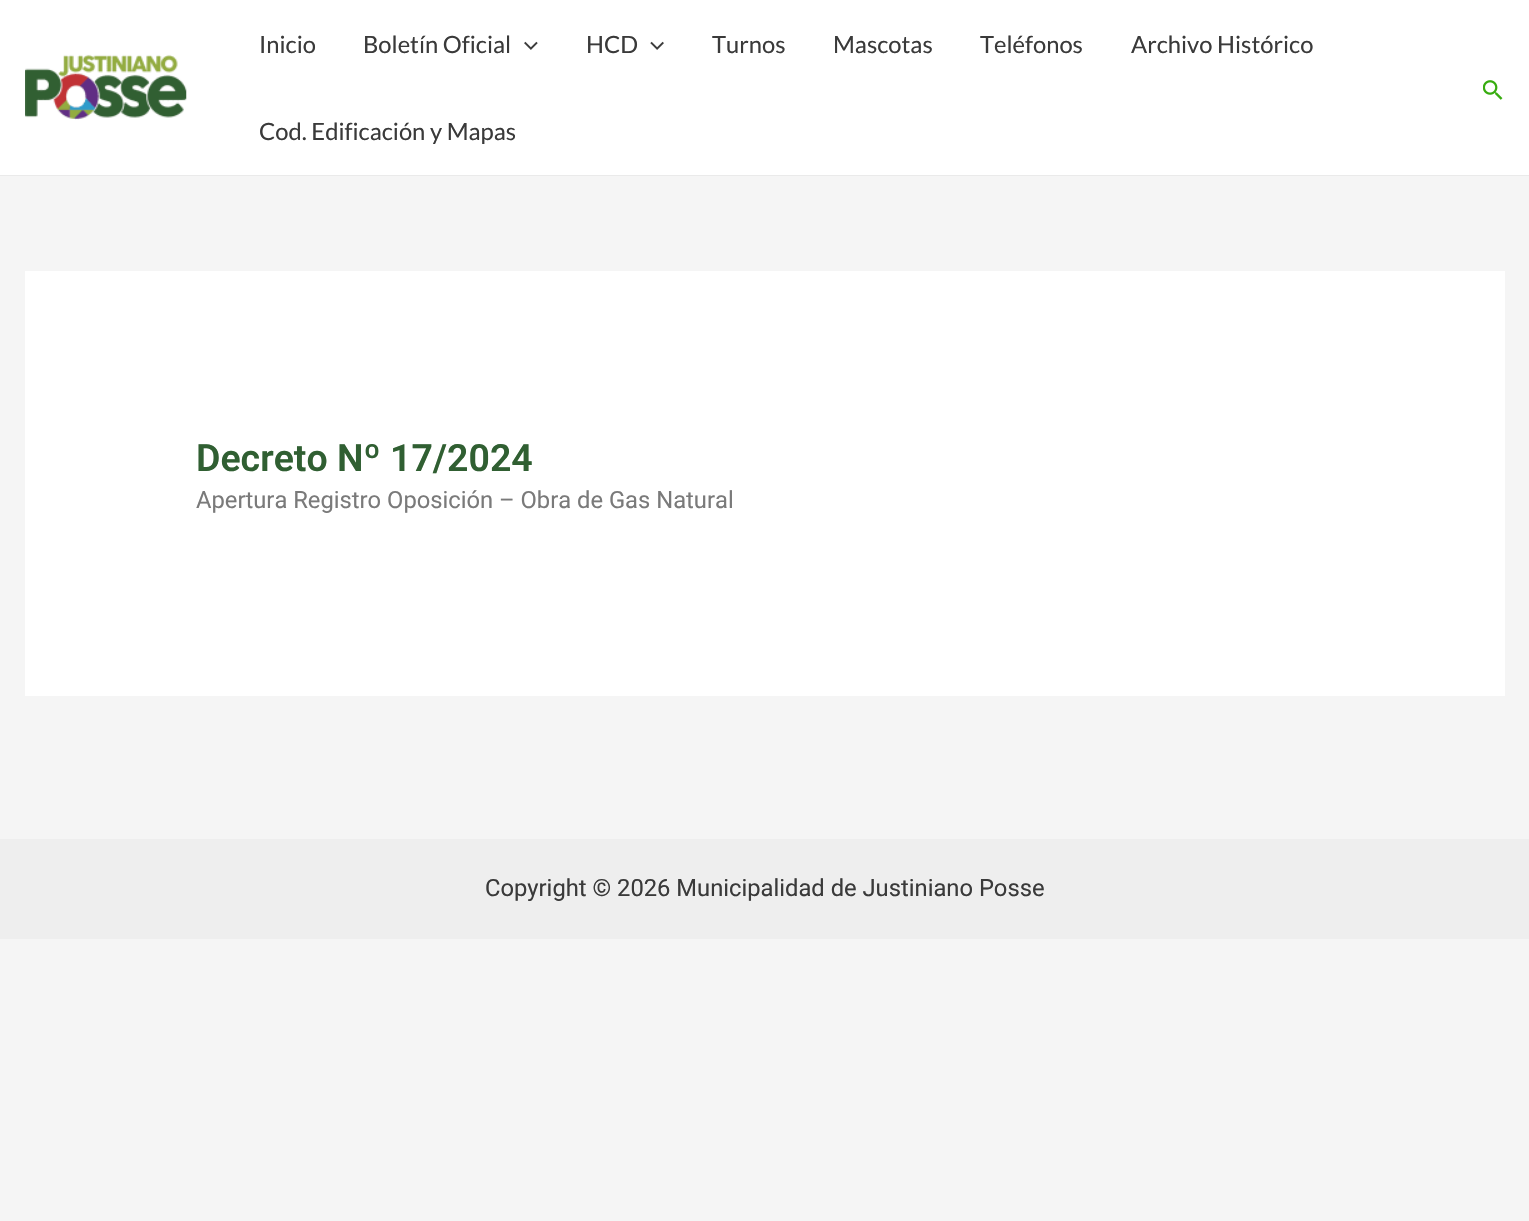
#include "include/core/SkBlurTypes.h"
#include "include/core/SkCanvas.h"
#include "include/core/SkData.h"
#include "include/core/SkFont.h"
#include "include/core/SkFontMgr.h"
#include "include/core/SkImage.h"
#include "include/core/SkMaskFilter.h"
#include "include/core/SkPaint.h"
#include "include/core/SkPathBuilder.h"
#include "include/core/SkTextBlob.h"
#include "include/effects/SkDashPathEffect.h"
#include "include/effects/SkGradientShader.h"
#include "include/utils/SkParsePath.h"

extern sk_sp<SkFontMgr> fontMgr;

static SkFont font(const char* family, int weight, float size, bool italic = false) {
    SkFontStyle style(weight, SkFontStyle::kNormal_Width,
        italic ? SkFontStyle::kItalic_Slant : SkFontStyle::kUpright_Slant);
    SkFont result(fontMgr->matchFamilyStyle(family, style), size);
    result.setSubpixel(true);
    return result;
}

static void drawLabel(SkCanvas* canvas, const char* s, float x, float y, const SkFont& font, SkColor color) {
    SkPaint ink(SkColor4f::FromColor(color));
    ink.setAntiAlias(true);
    canvas->drawString(s, x, y, font, ink);
}

static void fillRect(SkCanvas* canvas, float x, float y, float w, float h, SkColor color) {
    SkPaint ink(SkColor4f::FromColor(color));
    ink.setAntiAlias(true);
    canvas->drawRect(SkRect::MakeXYWH(x, y, w, h), ink);
}

static void drawPhoto(SkCanvas* canvas, const char* path, float x, float y, float w, float h) {
    auto image = SkImages::DeferredFromEncodedData(SkData::MakeFromFileName(path));
    canvas->drawImageRect(image, SkRect::MakeXYWH(x, y, w, h), SkSamplingOptions());
}

void draw(SkCanvas* canvas) {
    SkPaint paint;
    paint.setAntiAlias(true);
    canvas->clear(0xFFF5F5F5);
    fillRect(canvas, 0, 0, 1529, 175, 0xFFFFFFFF);
    fillRect(canvas, 0, 175, 1529, 1, 0xFFEAEAEA);
    drawPhoto(canvas, "assets/img1.png", 25, 54, 162, 66);
    SkFont font1 = font("Lato", 400, 23.75f);
    drawLabel(canvas, "Inicio", 259, 53, font1, 0xFF3A3A3A);
    drawLabel(canvas, "Boletín Oficial", 363, 53, font1, 0xFF3A3A3A);
    drawPhoto(canvas, "assets/img2.png", 524, 41, 14, 9);
    drawLabel(canvas, "HCD", 586, 53, font1, 0xFF3A3A3A);
    drawPhoto(canvas, "assets/img3.png", 650, 41, 14, 9);
    drawLabel(canvas, "Turnos", 712, 53, font1, 0xFF3A3A3A);
    drawLabel(canvas, "Mascotas", 833, 53, font1, 0xFF3A3A3A);
    drawLabel(canvas, "Teléfonos", 980, 53, font1, 0xFF3A3A3A);
    drawLabel(canvas, "Archivo Histórico", 1131, 53, font1, 0xFF3A3A3A);
    drawLabel(canvas, "Cod. Edificación y Mapas", 259, 140, font1, 0xFF3A3A3A);
    drawPhoto(canvas, "assets/img4.png", 1483, 80, 20, 20);
    fillRect(canvas, 25, 271, 1480, 425, 0xFFFFFFFF);
    SkFont font2 = font("Roboto", 600, 37.5f);
    drawLabel(canvas, "Decreto Nº 17/2024", 196, 471, font2, 0xFF305F32);
    SkFont font3 = font("Roboto", 400, 23.75f);
    drawLabel(canvas, "Apertura Registro Oposición – Obra de Gas Natural", 196, 508, font3, 0xFF7A7A7A);
    fillRect(canvas, 0, 839, 1529, 100, 0xFFEEEEEE);
    drawLabel(canvas, "Copyright © 2026 Municipalidad de Justiniano Posse", 485, 896, font3, 0xFF3A3A3A);
}
